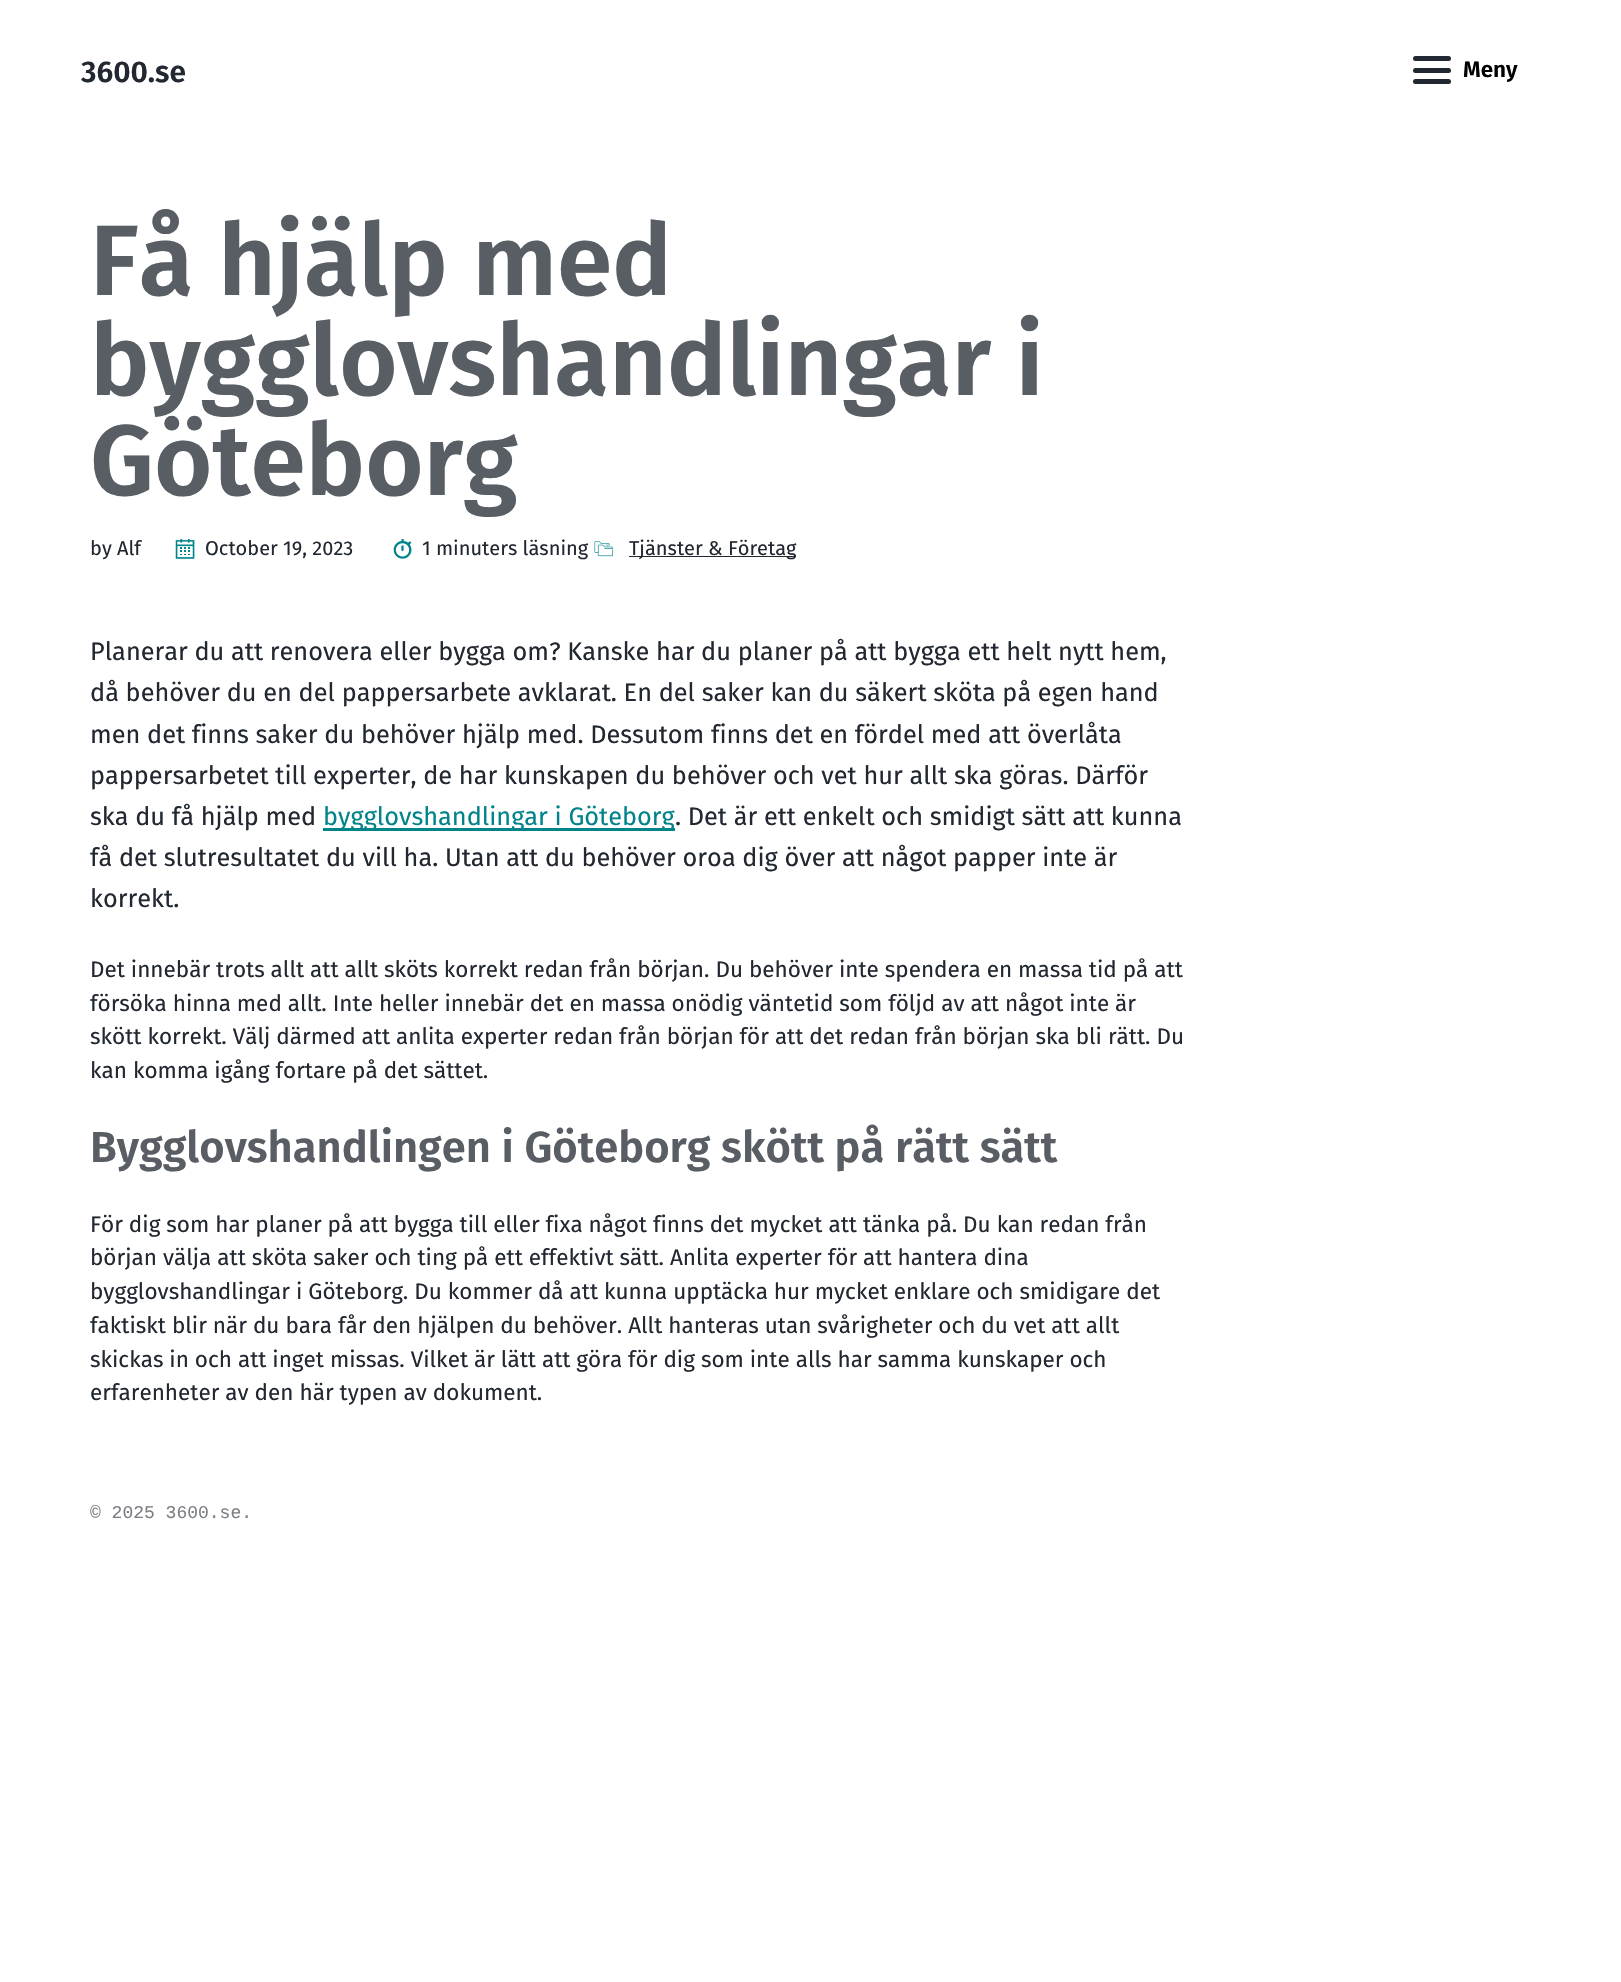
#include "include/core/SkBlurTypes.h"
#include "include/core/SkCanvas.h"
#include "include/core/SkData.h"
#include "include/core/SkFont.h"
#include "include/core/SkFontMgr.h"
#include "include/core/SkImage.h"
#include "include/core/SkMaskFilter.h"
#include "include/core/SkPaint.h"
#include "include/core/SkPathBuilder.h"
#include "include/core/SkTextBlob.h"
#include "include/effects/SkDashPathEffect.h"
#include "include/effects/SkGradientShader.h"
#include "include/utils/SkParsePath.h"

extern sk_sp<SkFontMgr> fontMgr;

static SkFont font(const char* family, int weight, float size, bool italic = false) {
    SkFontStyle style(weight, SkFontStyle::kNormal_Width,
        italic ? SkFontStyle::kItalic_Slant : SkFontStyle::kUpright_Slant);
    SkFont result(fontMgr->matchFamilyStyle(family, style), size);
    result.setSubpixel(true);
    return result;
}

static void drawLabel(SkCanvas* canvas, const char* s, float x, float y, const SkFont& font, SkColor color) {
    SkPaint ink(SkColor4f::FromColor(color));
    ink.setAntiAlias(true);
    canvas->drawString(s, x, y, font, ink);
}

static void fillRect(SkCanvas* canvas, float x, float y, float w, float h, SkColor color) {
    SkPaint ink(SkColor4f::FromColor(color));
    ink.setAntiAlias(true);
    canvas->drawRect(SkRect::MakeXYWH(x, y, w, h), ink);
}

static void fillRRect(SkCanvas* canvas, float x, float y, float w, float h, float radius, SkColor color) {
    SkPaint ink(SkColor4f::FromColor(color));
    ink.setAntiAlias(true);
    canvas->drawRoundRect(SkRect::MakeXYWH(x, y, w, h), radius, radius, ink);
}

static void drawPhoto(SkCanvas* canvas, const char* path, float x, float y, float w, float h) {
    auto image = SkImages::DeferredFromEncodedData(SkData::MakeFromFileName(path));
    canvas->drawImageRect(image, SkRect::MakeXYWH(x, y, w, h), SkSamplingOptions());
}

void draw(SkCanvas* canvas) {
    SkPaint paint;
    paint.setAntiAlias(true);
    canvas->clear(0xFFFFFFFF);
    SkFont font1 = font("Fira Sans", 600, 30);
    drawLabel(canvas, "3600.se", 81, 82, font1, 0xFF222831);
    SkFont font2 = font("Fira Sans", 600, 100);
    drawLabel(canvas, "Få hjälp med", 90, 295, font2, 0xFF595E65);
    drawLabel(canvas, "bygglovshandlingar i", 90, 395, font2, 0xFF595E65);
    drawLabel(canvas, "Göteborg", 90, 495, font2, 0xFF595E65);
    SkFont font3 = font("Fira Sans", 400, 20);
    drawLabel(canvas, "by Alf", 90, 555, font3, 0xFF222831);
    drawPhoto(canvas, "assets/img1.png", 175, 539, 20, 20);
    drawLabel(canvas, "October 19, 2023", 205, 555, font3, 0xFF222831);
    drawPhoto(canvas, "assets/img2.png", 393, 539, 19, 20);
    drawLabel(canvas, "1 minuters läsning", 422, 555, font3, 0xFF222831);
    drawPhoto(canvas, "assets/img3.png", 594, 541, 19, 16);
    fillRect(canvas, 629, 556, 167, 1, 0xFF222831);
    drawLabel(canvas, "Tjänster & Företag", 629, 555, font3, 0xFF222831);
    SkFont font4 = font("Fira Sans", 400, 25.3f);
    drawLabel(canvas, "Planerar du att renovera eller bygga om? Kanske har du planer på att bygga ett helt nytt hem,", 90, 660, font4, 0xFF222831);
    drawLabel(canvas, "då behöver du en del pappersarbete avklarat. En del saker kan du säkert sköta på egen hand", 90, 701, font4, 0xFF222831);
    drawLabel(canvas, "men det finns saker du behöver hjälp med. Dessutom finns det en fördel med att överlåta", 90, 743, font4, 0xFF222831);
    drawLabel(canvas, "pappersarbetet till experter, de har kunskapen du behöver och vet hur allt ska göras. Därför", 90, 784, font4, 0xFF222831);
    drawLabel(canvas, "ska du få hjälp med", 90, 825, font4, 0xFF222831);
    fillRect(canvas, 323, 828, 352, 3, 0xFF00848A);
    drawLabel(canvas, "bygglovshandlingar i Göteborg", 323, 825, font4, 0xFF00848A);
    drawLabel(canvas, ". Det är ett enkelt och smidigt sätt att kunna", 675, 825, font4, 0xFF222831);
    drawLabel(canvas, "få det slutresultatet du vill ha. Utan att du behöver oroa dig över att något papper inte är", 90, 866, font4, 0xFF222831);
    drawLabel(canvas, "korrekt.", 90, 907, font4, 0xFF222831);
    SkFont font5 = font("Fira Sans", 400, 22.5f);
    drawLabel(canvas, "Det innebär trots allt att allt sköts korrekt redan från början. Du behöver inte spendera en massa tid på att", 90, 977, font5, 0xFF222831);
    drawLabel(canvas, "försöka hinna med allt. Inte heller innebär det en massa onödig väntetid som följd av att något inte är", 90, 1011, font5, 0xFF222831);
    drawLabel(canvas, "skött korrekt. Välj därmed att anlita experter redan från början för att det redan från början ska bli rätt. Du", 90, 1044, font5, 0xFF222831);
    drawLabel(canvas, "kan komma igång fortare på det sättet.", 90, 1078, font5, 0xFF222831);
    SkFont font6 = font("Fira Sans", 600, 43.5f);
    drawLabel(canvas, "Bygglovshandlingen i Göteborg skött på rätt sätt", 90, 1162, font6, 0xFF595E65);
    drawLabel(canvas, "För dig som har planer på att bygga till eller fixa något finns det mycket att tänka på. Du kan redan från", 90, 1232, font5, 0xFF222831);
    drawLabel(canvas, "början välja att sköta saker och ting på ett effektivt sätt. Anlita experter för att hantera dina", 90, 1265, font5, 0xFF222831);
    drawLabel(canvas, "bygglovshandlingar i Göteborg. Du kommer då att kunna upptäcka hur mycket enklare och smidigare det", 90, 1299, font5, 0xFF222831);
    drawLabel(canvas, "faktiskt blir när du bara får den hjälpen du behöver. Allt hanteras utan svårigheter och du vet att allt", 90, 1333, font5, 0xFF222831);
    drawLabel(canvas, "skickas in och att inget missas. Vilket är lätt att göra för dig som inte alls har samma kunskaper och", 90, 1367, font5, 0xFF222831);
    drawLabel(canvas, "erfarenheter av den här typen av dokument.", 90, 1400, font5, 0xFF222831);
    SkFont font7 = font("Liberation Mono", 400, 18);
    drawLabel(canvas, "© 2025 3600.se.", 90, 1518, font7, 0xFF7A7E83);
    fillRRect(canvas, 1413, 68, 38, 5, 2.5f, 0xFF222831);
    fillRRect(canvas, 1413, 56, 38, 5, 2.5f, 0xFF222831);
    fillRRect(canvas, 1413, 79, 38, 5, 2.5f, 0xFF222831);
    SkFont font8 = font("Fira Sans", 600, 22.5f);
    drawLabel(canvas, "Meny", 1463, 77, font8, 0xFF000000);
}
